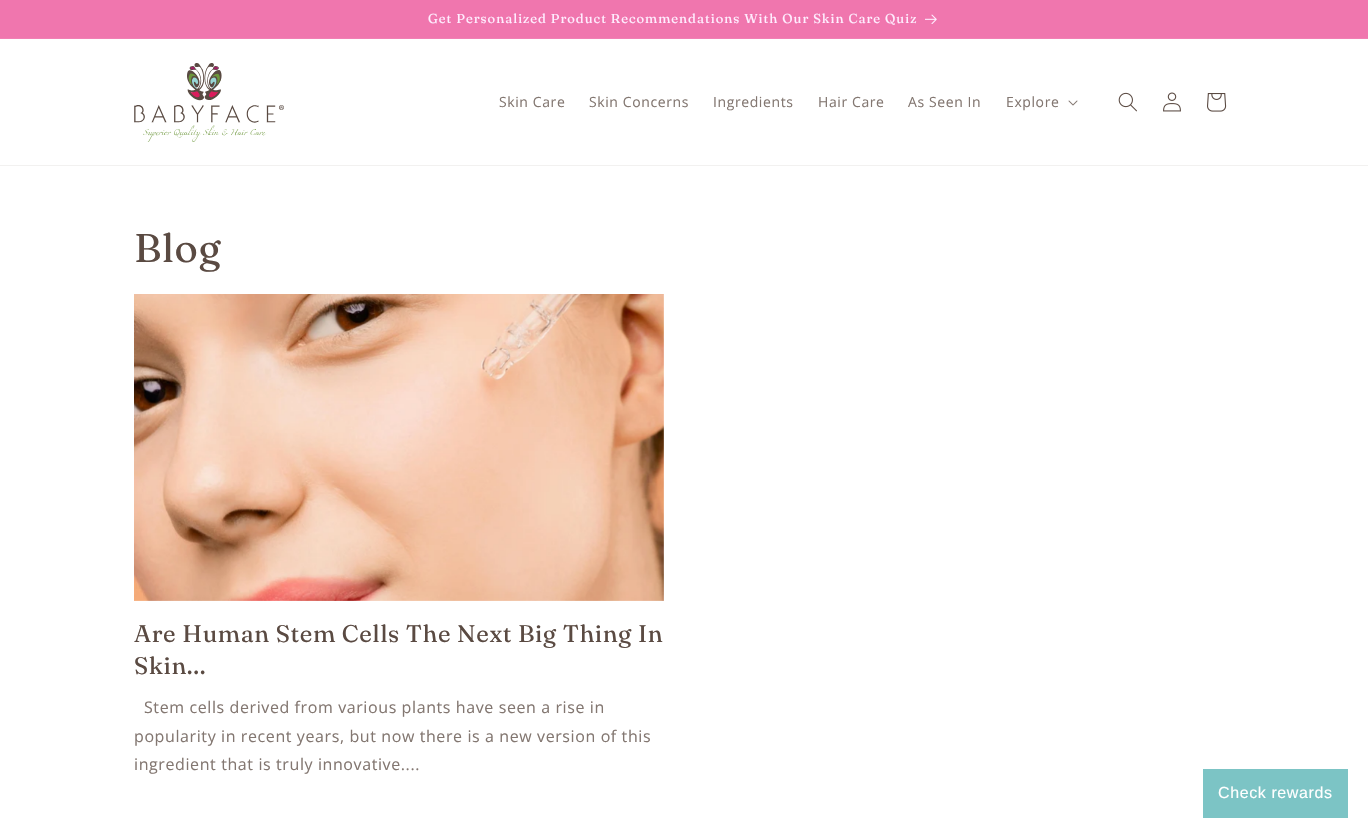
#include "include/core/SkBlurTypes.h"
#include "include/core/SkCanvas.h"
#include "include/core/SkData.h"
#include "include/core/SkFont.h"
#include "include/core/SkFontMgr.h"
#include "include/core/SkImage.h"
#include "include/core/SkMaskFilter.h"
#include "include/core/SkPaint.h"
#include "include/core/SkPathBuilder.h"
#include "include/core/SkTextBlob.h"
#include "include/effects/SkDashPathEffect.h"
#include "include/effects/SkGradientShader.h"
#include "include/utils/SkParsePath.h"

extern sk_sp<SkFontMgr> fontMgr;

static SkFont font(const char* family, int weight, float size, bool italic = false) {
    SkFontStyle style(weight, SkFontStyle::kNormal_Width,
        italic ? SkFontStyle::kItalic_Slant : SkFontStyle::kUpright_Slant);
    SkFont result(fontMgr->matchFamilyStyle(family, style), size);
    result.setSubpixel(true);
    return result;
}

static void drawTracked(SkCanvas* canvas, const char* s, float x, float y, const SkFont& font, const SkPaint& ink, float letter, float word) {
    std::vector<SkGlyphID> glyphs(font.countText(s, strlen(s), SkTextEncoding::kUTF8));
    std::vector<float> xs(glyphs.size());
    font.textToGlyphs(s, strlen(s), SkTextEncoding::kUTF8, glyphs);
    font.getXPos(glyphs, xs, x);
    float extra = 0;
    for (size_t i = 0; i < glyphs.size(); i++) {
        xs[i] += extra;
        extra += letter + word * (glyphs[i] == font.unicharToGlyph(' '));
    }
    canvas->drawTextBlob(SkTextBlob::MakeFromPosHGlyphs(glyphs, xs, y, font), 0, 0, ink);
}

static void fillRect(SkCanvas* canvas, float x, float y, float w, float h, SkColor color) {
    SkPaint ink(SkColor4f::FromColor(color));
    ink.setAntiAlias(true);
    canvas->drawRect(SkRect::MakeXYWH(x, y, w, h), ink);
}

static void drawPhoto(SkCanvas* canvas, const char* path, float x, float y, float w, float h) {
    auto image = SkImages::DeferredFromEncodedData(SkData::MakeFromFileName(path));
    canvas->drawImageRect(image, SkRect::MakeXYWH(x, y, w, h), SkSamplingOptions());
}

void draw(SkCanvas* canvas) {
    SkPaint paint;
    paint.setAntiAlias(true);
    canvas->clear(0xFFFFFFFF);
    fillRect(canvas, 0, 0, 1368, 38, 0xFFF076AE);
    fillRect(canvas, 0, 38, 1368, 1, 0xFFF180B4);
    SkFont font1 = font("Fraunces", 400, 13);
    paint.setColor(0xFFFFEEFF);
    drawTracked(canvas, "Get Personalized Product Recommendations With Our Skin Care Quiz", 428, 23, font1, paint, 1, 0);
    drawPhoto(canvas, "assets/img1.png", 925, 14, 12, 10);
    fillRect(canvas, 0, 165, 1368, 1, 0xFFF2F1F0);
    drawPhoto(canvas, "assets/img2.png", 134, 63, 150, 79);
    SkFont font2 = font("Open Sans", 400, 14);
    paint.setColor(0xFF837771);
    drawTracked(canvas, "Skin Care", 499, 107, font2, paint, 0.6f, 0);
    drawTracked(canvas, "Skin Concerns", 589, 107, font2, paint, 0.6f, 0);
    drawTracked(canvas, "Ingredients", 713, 107, font2, paint, 0.6f, 0);
    drawTracked(canvas, "Hair Care", 818, 107, font2, paint, 0.6f, 0);
    drawTracked(canvas, "As Seen In", 908, 107, font2, paint, 0.6f, 0);
    drawTracked(canvas, "Explore", 1006, 107, font2, paint, 0.6f, 0);
    drawPhoto(canvas, "assets/img3.png", 1068, 100, 10, 6);
    drawPhoto(canvas, "assets/img4.png", 1118, 92, 19, 20);
    drawPhoto(canvas, "assets/img5.png", 1163, 92, 18, 20);
    drawPhoto(canvas, "assets/img6.png", 1207, 93, 20, 19);
    SkFont font3 = font("Fraunces", 400, 40);
    paint.setColor(0xFF5A4A42);
    drawTracked(canvas, "Blog", 134, 262, font3, paint, 0.6f, 0);
    drawPhoto(canvas, "assets/img7.png", 134, 294, 530, 307);
    SkFont font4 = font("Fraunces", 400, 24);
    drawTracked(canvas, "Are Human Stem Cells The Next Big Thing In", 134, 642, font4, paint, 0.6f, 0);
    drawTracked(canvas, "Skin...", 134, 674, font4, paint, 0.6f, 0);
    SkFont font5 = font("Open Sans", 400, 16);
    paint.setColor(0xFF837771);
    drawTracked(canvas, "Stem cells derived from various plants have seen a rise in", 144, 713, font5, paint, 0.6f, 0);
    drawTracked(canvas, "popularity in recent years, but now there is a new version of this", 134, 742, font5, paint, 0.6f, 0);
    drawTracked(canvas, "ingredient that is truly innovative....", 134, 770, font5, paint, 0.6f, 0);
    fillRect(canvas, 1203, 769, 145, 49, 0xFF7CC4C5);
    SkFont font6 = font("Liberation Sans", 400, 16);
    paint.setColor(0xFFFFFFFF);
    drawTracked(canvas, "Check rewards", 1218, 798, font6, paint, 0.6f, 0);
}
